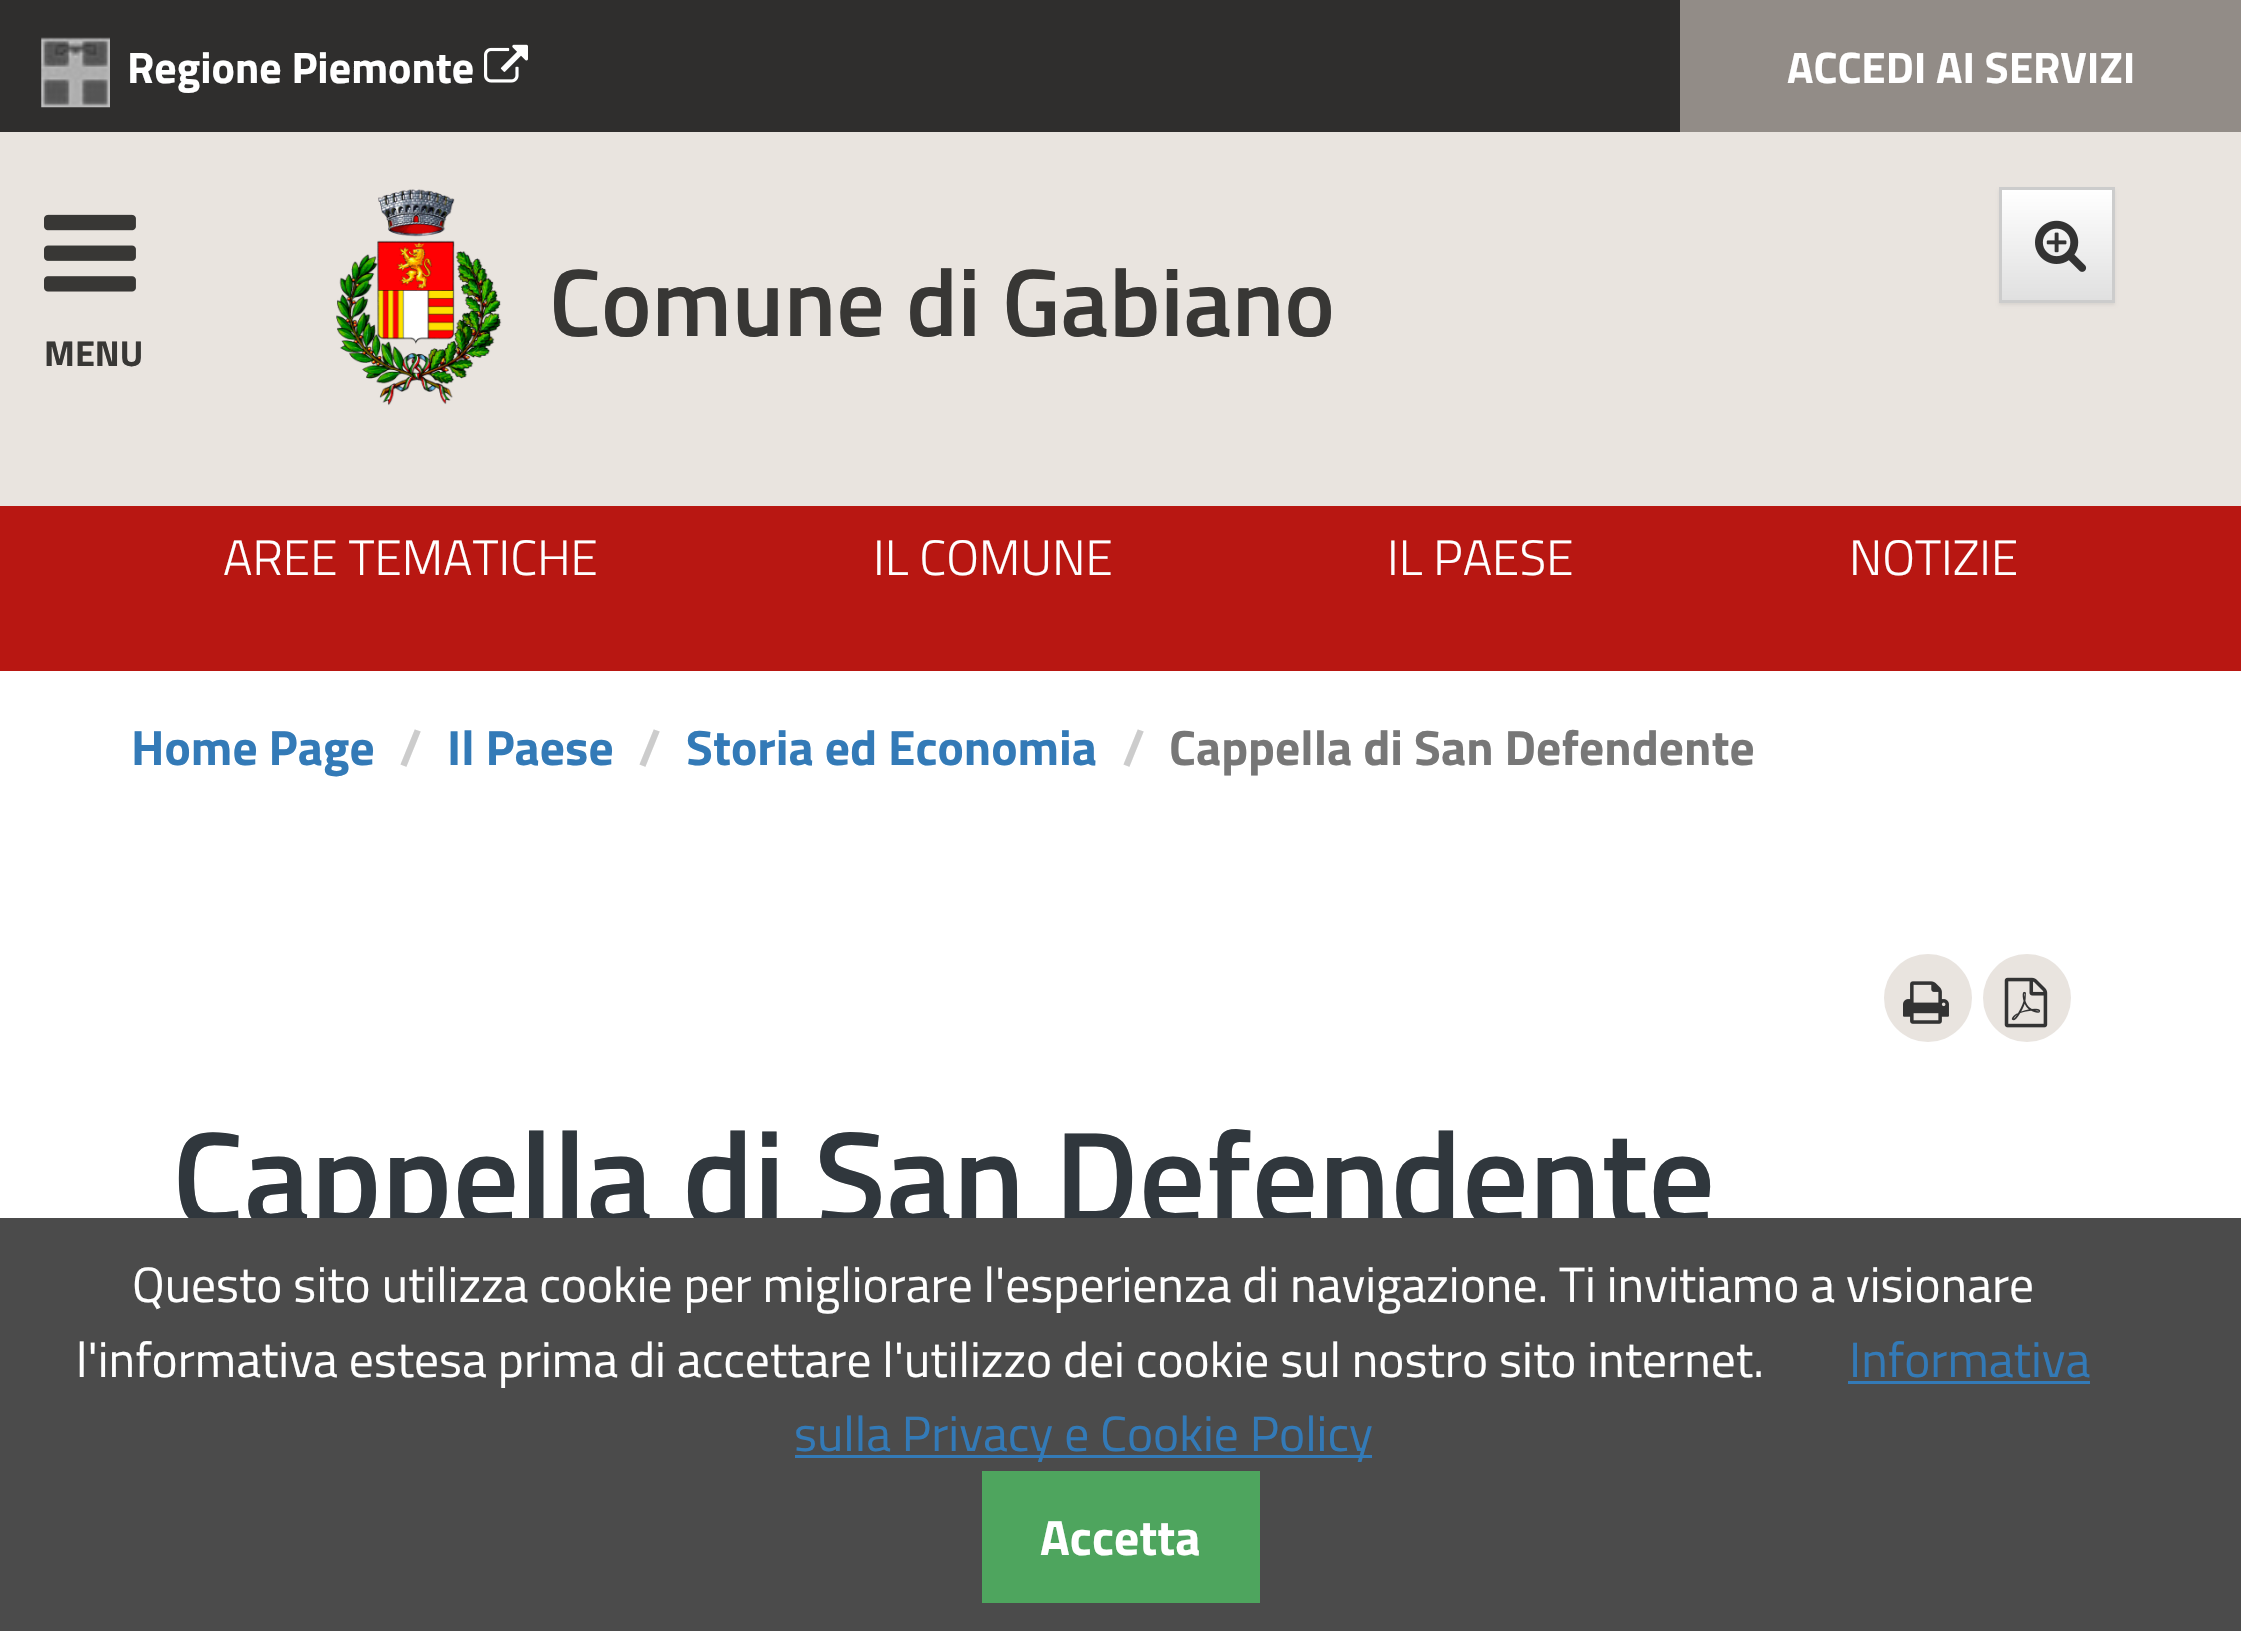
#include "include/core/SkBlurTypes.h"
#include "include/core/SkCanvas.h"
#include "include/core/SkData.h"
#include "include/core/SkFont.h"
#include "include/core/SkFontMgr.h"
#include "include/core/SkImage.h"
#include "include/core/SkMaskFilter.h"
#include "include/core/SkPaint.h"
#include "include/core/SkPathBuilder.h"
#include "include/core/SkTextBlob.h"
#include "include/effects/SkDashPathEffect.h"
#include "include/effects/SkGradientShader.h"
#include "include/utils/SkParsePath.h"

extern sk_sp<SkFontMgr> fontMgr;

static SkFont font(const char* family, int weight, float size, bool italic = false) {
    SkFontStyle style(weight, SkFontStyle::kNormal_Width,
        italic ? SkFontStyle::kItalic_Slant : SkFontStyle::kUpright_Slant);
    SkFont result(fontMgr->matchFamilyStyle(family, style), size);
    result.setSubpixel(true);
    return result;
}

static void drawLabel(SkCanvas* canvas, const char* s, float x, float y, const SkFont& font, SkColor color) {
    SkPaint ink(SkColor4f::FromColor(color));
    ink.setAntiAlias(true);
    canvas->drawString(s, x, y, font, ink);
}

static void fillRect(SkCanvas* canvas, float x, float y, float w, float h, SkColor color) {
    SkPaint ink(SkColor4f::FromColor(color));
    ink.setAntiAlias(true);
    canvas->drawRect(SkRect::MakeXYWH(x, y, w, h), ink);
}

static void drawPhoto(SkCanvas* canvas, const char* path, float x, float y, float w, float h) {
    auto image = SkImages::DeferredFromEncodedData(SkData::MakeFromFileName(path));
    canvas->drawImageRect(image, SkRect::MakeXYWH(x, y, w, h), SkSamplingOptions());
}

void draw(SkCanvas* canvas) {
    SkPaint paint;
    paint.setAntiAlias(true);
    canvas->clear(0xFFFFFFFF);
    fillRect(canvas, 0, 132, 2241, 374, 0xFFE9E4DF);
    fillRect(canvas, 0, 0, 1680, 132, 0xFF2F2E2D);
    drawPhoto(canvas, "assets/img1.png", 41, 37, 69, 71);
    SkFont font1 = font("Titillium Web", 700, 44);
    drawLabel(canvas, "Regione Piemonte", 127, 83, font1, 0xFFFFFFFF);
    drawPhoto(canvas, "assets/img2.png", 484, 44, 44, 39);
    fillRect(canvas, 1680, 0, 561, 132, 0xFF928C87);
    drawLabel(canvas, "ACCEDI AI SERVIZI", 1787, 83, font1, 0xFFFFFFFF);
    drawPhoto(canvas, "assets/img3.png", 336, 189, 166, 217);
    SkFont font2 = font("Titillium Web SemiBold", 600, 95.75f);
    drawLabel(canvas, "Comune di Gabiano", 549, 336, font2, 0xFF383735);
    paint.setColor(0x12000000);
    paint.setMaskFilter(SkMaskFilter::MakeBlur(kNormal_SkBlurStyle, 1.5f));
    canvas->drawRect(SkRect::MakeXYWH(1999, 190, 116, 115), paint);
    paint.setMaskFilter(nullptr);
    {
        const SkColor colors[] = {0xFFFFFFFF, 0xFFE0E0E0};
        const float stops[] = {0, 1};
        const SkPoint ends[] = {{2057, 190}, {2057, 300}};
        paint.setShader(SkGradientShader::MakeLinear(ends, colors, stops, 2, SkTileMode::kClamp));
        paint.setAlpha(255);
    }
    canvas->drawRect(SkRect::MakeXYWH(2002, 190, 110, 110), paint);
    paint.setStroke(true);
    paint.setStrokeWidth(3);
    paint.setShader(nullptr);
    paint.setColor(0xFFCCCCCC);
    canvas->drawRect(SkRect::MakeXYWH(2000.5f, 188.5f, 113, 113), paint);
    drawPhoto(canvas, "assets/img4.png", 2035, 220, 52, 52);
    drawPhoto(canvas, "assets/img5.png", 44, 214, 92, 78);
    SkFont font3 = font("Titillium Web", 700, 36);
    drawLabel(canvas, "MENU", 44, 366, font3, 0xFF383735);
    fillRect(canvas, 0, 506, 2241, 165, 0xFFB81712);
    SkFont font4 = font("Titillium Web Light", 300, 49.5f);
    drawLabel(canvas, "AREE TEMATICHE", 223, 575, font4, 0xFFFFFFFF);
    drawLabel(canvas, "IL COMUNE", 873, 575, font4, 0xFFFFFFFF);
    drawLabel(canvas, "IL PAESE", 1387, 575, font4, 0xFFFFFFFF);
    drawLabel(canvas, "NOTIZIE", 1849, 575, font4, 0xFFFFFFFF);
    SkFont font5 = font("Titillium Web", 700, 49.5f);
    drawLabel(canvas, "Home Page", 131, 765, font5, 0xFF337AB7);
    drawLabel(canvas, "/", 399, 765, font5, 0xFFCCCCCC);
    drawLabel(canvas, "Il Paese", 447, 765, font5, 0xFF337AB7);
    drawLabel(canvas, "/", 638, 765, font5, 0xFFCCCCCC);
    drawLabel(canvas, "Storia ed Economia", 686, 765, font5, 0xFF337AB7);
    drawLabel(canvas, "/", 1122, 765, font5, 0xFFCCCCCC);
    drawLabel(canvas, "Cappella di San Defendente", 1169, 765, font5, 0xFF777777);
    paint.setStroke(false);
    paint.setColor(0xFFE9E4DF);
    canvas->drawCircle(1928, 998, 44, paint);
    drawPhoto(canvas, "assets/img6.png", 1903, 981, 46, 43);
    canvas->drawCircle(2027, 998, 44, paint);
    drawPhoto(canvas, "assets/img7.png", 2004, 977, 44, 51);
    SkFont font6 = font("Titillium Web SemiBold", 600, 132);
    drawLabel(canvas, "Cappella di San Defendente", 172, 1224, font6, 0xFF30373D);
    fillRect(canvas, 0, 1218, 2241, 413, 0xFF4B4B4B);
    SkFont font7 = font("Titillium Web", 400, 49.5f);
    drawLabel(canvas, "Questo sito utilizza cookie per migliorare l'esperienza di navigazione. Ti invitiamo a visionare", 132, 1302, font7, 0xFFFFFFFF);
    drawLabel(canvas, "l'informativa estesa prima di accettare l'utilizzo dei cookie sul nostro sito internet.", 76, 1377, font7, 0xFFFFFFFF);
    drawLabel(canvas, "Informativa", 1849, 1377, font7, 0xFF337AB7);
    fillRect(canvas, 1848, 1381, 242, 3, 0xFF337AB7);
    fillRect(canvas, 795, 1455, 577, 3, 0xFF337AB7);
    drawLabel(canvas, "sulla Privacy e Cookie Policy", 794, 1451, font7, 0xFF337AB7);
    fillRect(canvas, 982, 1471, 278, 132, 0xFF4EA55E);
    drawLabel(canvas, "Accetta", 1040, 1555, font5, 0xFFFFFFFF);
}
